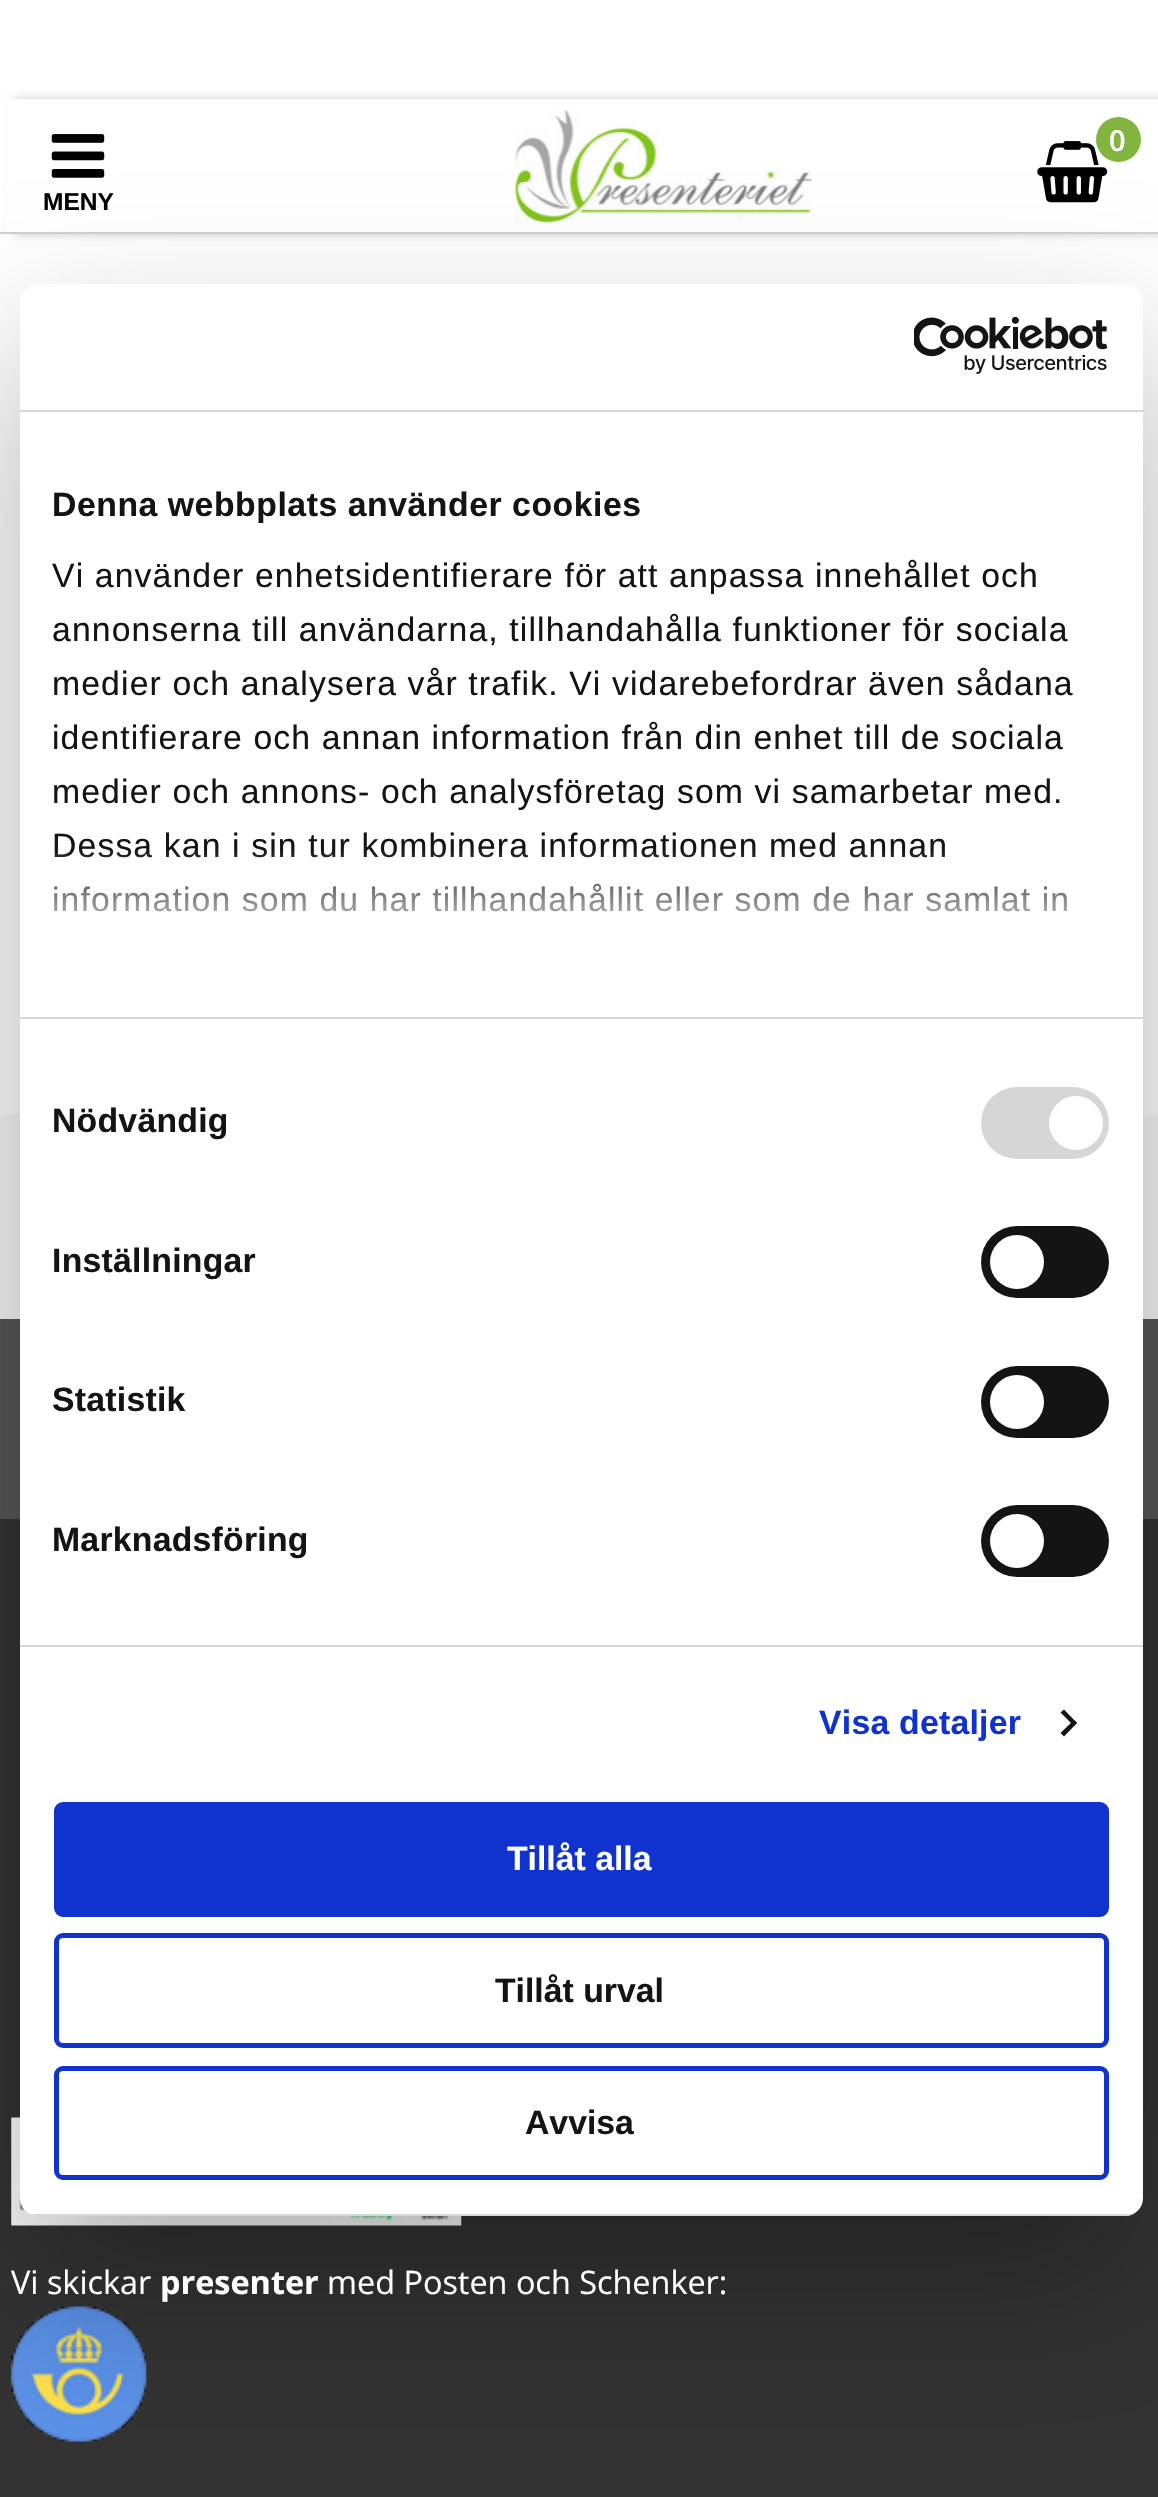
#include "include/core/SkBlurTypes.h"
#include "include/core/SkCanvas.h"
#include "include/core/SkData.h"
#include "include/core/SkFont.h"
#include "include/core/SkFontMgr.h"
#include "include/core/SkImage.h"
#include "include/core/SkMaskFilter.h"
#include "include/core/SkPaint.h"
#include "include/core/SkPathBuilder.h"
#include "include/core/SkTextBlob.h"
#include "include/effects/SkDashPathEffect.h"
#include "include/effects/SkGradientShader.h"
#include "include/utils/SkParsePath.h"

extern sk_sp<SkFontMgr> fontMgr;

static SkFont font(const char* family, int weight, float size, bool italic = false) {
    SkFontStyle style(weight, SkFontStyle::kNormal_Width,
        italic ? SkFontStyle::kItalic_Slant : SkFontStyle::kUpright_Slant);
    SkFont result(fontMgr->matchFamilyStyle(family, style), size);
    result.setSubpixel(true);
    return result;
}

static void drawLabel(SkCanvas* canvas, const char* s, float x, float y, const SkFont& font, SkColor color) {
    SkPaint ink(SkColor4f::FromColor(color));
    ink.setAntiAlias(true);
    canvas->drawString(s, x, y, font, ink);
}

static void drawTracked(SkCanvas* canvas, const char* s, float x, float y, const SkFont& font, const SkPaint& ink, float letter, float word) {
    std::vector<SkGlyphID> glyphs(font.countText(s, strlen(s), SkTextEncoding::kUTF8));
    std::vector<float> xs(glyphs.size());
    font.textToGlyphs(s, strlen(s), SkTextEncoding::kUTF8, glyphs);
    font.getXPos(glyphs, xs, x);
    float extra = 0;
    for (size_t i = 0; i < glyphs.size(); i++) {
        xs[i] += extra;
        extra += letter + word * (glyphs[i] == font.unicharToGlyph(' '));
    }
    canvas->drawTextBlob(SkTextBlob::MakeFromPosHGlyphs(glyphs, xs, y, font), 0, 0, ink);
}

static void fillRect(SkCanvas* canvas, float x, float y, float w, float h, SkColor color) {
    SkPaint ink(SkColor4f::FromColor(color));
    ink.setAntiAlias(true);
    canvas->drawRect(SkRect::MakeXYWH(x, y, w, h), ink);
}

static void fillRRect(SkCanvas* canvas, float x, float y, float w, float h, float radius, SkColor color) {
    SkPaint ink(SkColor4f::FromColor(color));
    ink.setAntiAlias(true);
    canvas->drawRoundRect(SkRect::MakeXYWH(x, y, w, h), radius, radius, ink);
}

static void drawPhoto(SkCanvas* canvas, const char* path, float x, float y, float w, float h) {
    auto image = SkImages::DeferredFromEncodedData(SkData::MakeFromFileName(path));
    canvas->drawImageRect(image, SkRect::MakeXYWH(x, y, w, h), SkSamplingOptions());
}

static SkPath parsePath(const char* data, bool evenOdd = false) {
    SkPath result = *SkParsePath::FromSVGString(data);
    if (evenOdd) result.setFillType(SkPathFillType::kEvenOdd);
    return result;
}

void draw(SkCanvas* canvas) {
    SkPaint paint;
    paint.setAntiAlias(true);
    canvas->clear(0xFFFFFFFF);
    paint.setColor(0xFFCCCCCC);
    paint.setMaskFilter(SkMaskFilter::MakeBlur(kNormal_SkBlurStyle, 4.5f));
    canvas->drawRect(SkRect::MakeXYWH(14, 99, 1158, 135), paint);
    paint.setMaskFilter(nullptr);
    fillRect(canvas, 7, 99, 1151, 133, 0xFFFFFFFF);
    fillRect(canvas, 0, 232, 1158, 2, 0xFFD0D0D0);
    drawPhoto(canvas, "assets/img1.png", 515, 110, 298, 113);
    drawPhoto(canvas, "assets/img2.png", 1037, 141, 71, 62);
    paint.setColor(0xFF82B440);
    canvas->drawCircle(1118.5f, 139.5f, 22.5f, paint);
    SkFont font1 = font("Open Sans", 600, 29);
    drawLabel(canvas, "0", 1109, 151, font1, 0xFFFFFFFF);
    drawPhoto(canvas, "assets/img3.png", 51, 134, 54, 44);
    SkFont font2 = font("Liberation Sans", 700, 24.5f);
    drawLabel(canvas, "MENY", 43, 210, font2, 0xFF000000);
    fillRect(canvas, 0, 1114, 1158, 205, 0xFFF7F7F7);
    fillRect(canvas, 0, 1319, 1158, 200, 0xFF565656);
    fillRect(canvas, 0, 1519, 1158, 978, 0xFF333333);
    drawPhoto(canvas, "assets/img5.png", 11, 2117, 451, 109);
    drawPhoto(canvas, "assets/img6.png", 11, 2306, 136, 136);
    paint.setColor(0x4D000000);
    paint.setMaskFilter(SkMaskFilter::MakeBlur(kNormal_SkBlurStyle, 76.5f));
    canvas->drawRoundRect(SkRect::MakeXYWH(20, 356, 1123, 1932), 18, 18, paint);
    paint.setMaskFilter(nullptr);
    fillRRect(canvas, 20, 284, 1123, 1932, 18, 0xFFFFFFFF);
    fillRect(canvas, 20, 410, 1123, 2, 0xFFD6D6D6);
    drawPhoto(canvas, "assets/img4.png", 914, 317, 194, 57);
    fillRect(canvas, 20, 1017, 1123, 2, 0xFFD6D6D6);
    SkFont font3 = font("Liberation Sans", 700, 33.75f);
    paint.setColor(0xFF141414);
    drawTracked(canvas, "Denna webbplats använder cookies", 52, 516, font3, paint, 0.55f, 0);
    SkFont font4 = font("Liberation Sans", 400, 33.75f);
    drawTracked(canvas, "Vi använder enhetsidentifierare för att anpassa innehållet och", 52, 587, font4, paint, 1.12f, 0);
    drawTracked(canvas, "annonserna till användarna, tillhandahålla funktioner för sociala", 52, 641, font4, paint, 1.12f, 0);
    drawTracked(canvas, "medier och analysera vår trafik. Vi vidarebefordrar även sådana", 52, 695, font4, paint, 1.12f, 0);
    drawTracked(canvas, "identifierare och annan information från din enhet till de sociala", 52, 749, font4, paint, 1.12f, 0);
    drawTracked(canvas, "medier och annons- och analysföretag som vi samarbetar med.", 52, 803, font4, paint, 1.12f, 0);
    drawTracked(canvas, "Dessa kan i sin tur kombinera informationen med annan", 52, 857, font4, paint, 1.12f, 0);
    drawTracked(canvas, "information som du har tillhandahållit eller som de har samlat in", 52, 911, font4, paint, 1.12f, 0);
    {
        const SkColor colors[] = {0xFFFFFFFF, 0xCCFFFFFF, 0x00FFFFFF};
        const float stops[] = {0, 0.5f, 1};
        const SkPoint ends[] = {{566, 1016}, {566, 848}};
        paint.setShader(SkGradientShader::MakeLinear(ends, colors, stops, 3, SkTileMode::kClamp));
        paint.setAlpha(255);
    }
    canvas->drawRect(SkRect::MakeXYWH(54, 850, 1014, 62), paint);
    fillRect(canvas, 20, 1645, 1123, 2, 0xFFD6D6D6);
    paint.setShader(nullptr);
    paint.setColor(0xFF141414);
    drawTracked(canvas, "Nödvändig", 52, 1132, font3, paint, 0.25f, 0);
    fillRRect(canvas, 981, 1087, 128, 72, 36, 0xFFD6D6D6);
    paint.setColor(0xFFFFFFFF);
    canvas->drawCircle(1076, 1123, 27, paint);
    paint.setColor(0xFF141414);
    drawTracked(canvas, "Inställningar", 52, 1272, font3, paint, 0.25f, 0);
    fillRRect(canvas, 981, 1226, 128, 72, 36, 0xFF141414);
    paint.setColor(0xFFFFFFFF);
    canvas->drawCircle(1017, 1262, 27, paint);
    paint.setColor(0xFF141414);
    drawTracked(canvas, "Statistik", 52, 1411, font3, paint, 0.25f, 0);
    fillRRect(canvas, 981, 1366, 128, 72, 36, 0xFF141414);
    paint.setColor(0xFFFFFFFF);
    canvas->drawCircle(1017, 1402, 27, paint);
    paint.setColor(0xFF141414);
    drawTracked(canvas, "Marknadsföring", 52, 1551, font3, paint, 0.25f, 0);
    fillRRect(canvas, 981, 1505, 128, 72, 36, 0xFF141414);
    paint.setColor(0xFFFFFFFF);
    canvas->drawCircle(1017, 1541, 27, paint);
    paint.setColor(0xFF1032CF);
    drawTracked(canvas, "Visa detaljer", 819, 1734, font3, paint, 0.25f, 0);
    paint.setColor(0xFF141414);
    canvas->drawPath(parsePath("M1064 1709.5L1077 1723L1074 1726L1060.5 1712.5Z"), paint);
    canvas->drawPath(parsePath("M1074 1720L1077 1723L1064 1736.5L1060.5 1733Z"), paint);
    canvas->save();
    canvas->clipPath(parsePath("M38 284H1125C1135 284 1143 292 1143 302V2198C1143 2208 1135 2216 1125 2216H38C28 2216 20 2208 20 2198V302C20 292 28 284 38 284Z"), true);
    fillRect(canvas, 30, 2214, 1103, 2, 0xFFD6D6D6);
    canvas->restore();
    paint.setColor(0xFF1032CF);
    canvas->drawRoundRect(SkRect::MakeXYWH(56.5f, 1804.5f, 1050, 110), 6.5f, 6.5f, paint);
    paint.setStroke(true);
    paint.setStrokeWidth(5);
    canvas->drawRoundRect(SkRect::MakeXYWH(56.5f, 1804.5f, 1050, 110), 6.5f, 6.5f, paint);
    drawLabel(canvas, "Tillåt alla", 507, 1870, font3, 0xFFFFFFFF);
    canvas->drawRoundRect(SkRect::MakeXYWH(56.5f, 1935.5f, 1050, 110), 6.5f, 6.5f, paint);
    drawLabel(canvas, "Tillåt urval", 495, 2002, font3, 0xFF141414);
    canvas->drawRoundRect(SkRect::MakeXYWH(56.5f, 2068.5f, 1050, 109), 6.5f, 6.5f, paint);
    drawLabel(canvas, "Avvisa", 525, 2134, font3, 0xFF141414);
    SkFont font5 = font("Open Sans", 400, 32.4f);
    drawLabel(canvas, "Vi skickar", 11, 2294, font5, 0xFFFFFFFF);
    SkFont font6 = font("Open Sans", 700, 32.4f);
    drawLabel(canvas, "presenter", 160, 2294, font6, 0xFFFFFFFF);
    drawLabel(canvas, "med Posten och Schenker:", 327, 2294, font5, 0xFFFFFFFF);
}
